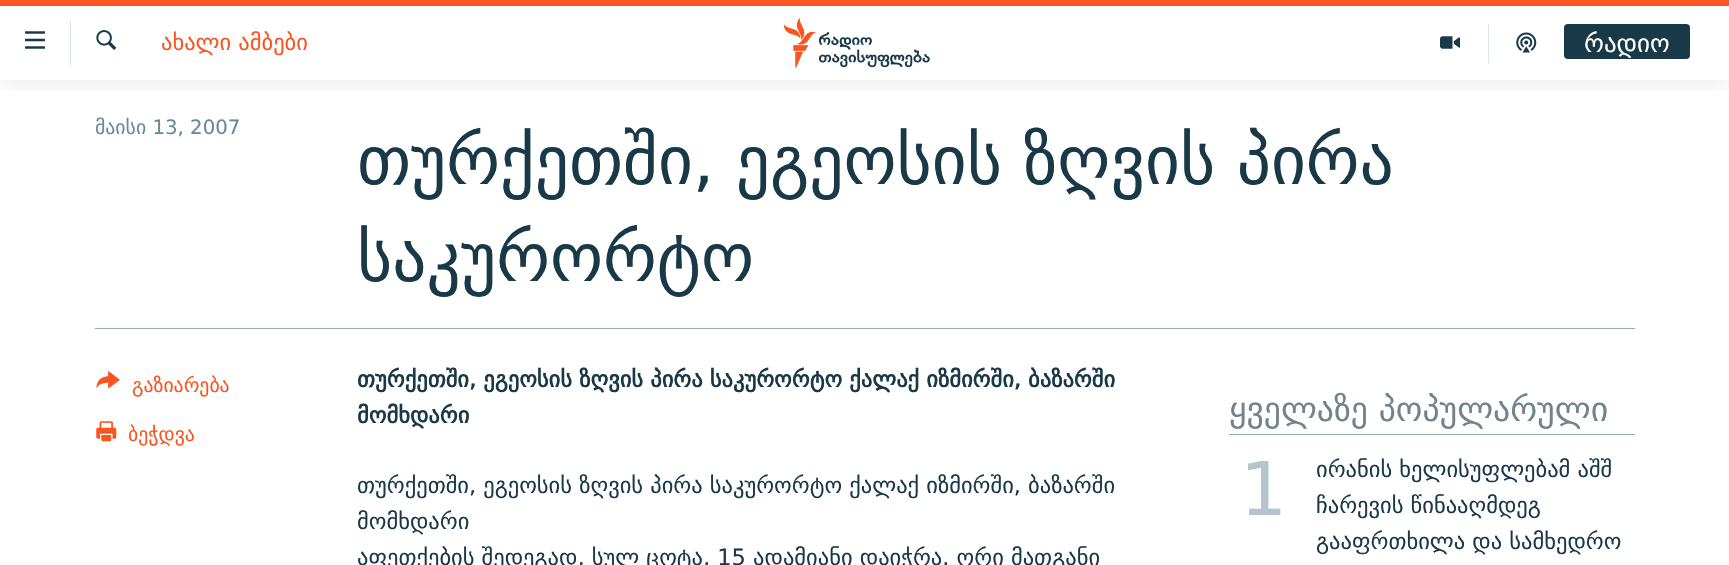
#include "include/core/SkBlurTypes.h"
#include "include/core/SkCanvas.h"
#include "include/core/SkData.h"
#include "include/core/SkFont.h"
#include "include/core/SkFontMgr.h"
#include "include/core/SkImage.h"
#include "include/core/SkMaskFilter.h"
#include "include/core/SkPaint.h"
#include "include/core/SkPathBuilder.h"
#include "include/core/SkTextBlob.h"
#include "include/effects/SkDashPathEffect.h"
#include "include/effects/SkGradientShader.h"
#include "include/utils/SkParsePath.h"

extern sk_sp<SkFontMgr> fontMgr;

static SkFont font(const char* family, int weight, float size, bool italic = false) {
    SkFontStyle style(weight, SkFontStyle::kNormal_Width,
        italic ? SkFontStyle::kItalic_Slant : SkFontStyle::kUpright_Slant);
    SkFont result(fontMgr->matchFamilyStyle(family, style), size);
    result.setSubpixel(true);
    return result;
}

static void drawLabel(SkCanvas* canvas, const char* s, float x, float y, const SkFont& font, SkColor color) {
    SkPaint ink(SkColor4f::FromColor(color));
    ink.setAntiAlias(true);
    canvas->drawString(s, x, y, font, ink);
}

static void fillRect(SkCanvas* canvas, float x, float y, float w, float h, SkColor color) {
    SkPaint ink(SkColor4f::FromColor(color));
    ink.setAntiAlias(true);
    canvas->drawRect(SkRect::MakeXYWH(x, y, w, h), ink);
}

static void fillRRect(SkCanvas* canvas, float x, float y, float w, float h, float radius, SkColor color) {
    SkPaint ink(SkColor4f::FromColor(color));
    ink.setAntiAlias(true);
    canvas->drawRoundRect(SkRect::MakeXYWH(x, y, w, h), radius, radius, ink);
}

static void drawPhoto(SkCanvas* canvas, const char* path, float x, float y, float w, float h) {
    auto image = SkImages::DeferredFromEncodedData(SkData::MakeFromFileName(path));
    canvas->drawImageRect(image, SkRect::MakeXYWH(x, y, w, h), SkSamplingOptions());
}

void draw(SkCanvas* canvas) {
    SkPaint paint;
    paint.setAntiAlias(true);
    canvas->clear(0xFFFFFFFF);
    canvas->save();
    canvas->clipRect(SkRect::MakeXYWH(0, 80, 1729, 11));
    paint.setColor(0x1A000000);
    paint.setMaskFilter(SkMaskFilter::MakeBlur(kNormal_SkBlurStyle, 12.5f));
    canvas->drawRect(SkRect::MakeXYWH(0, 0, 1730, 80), paint);
    paint.setMaskFilter(nullptr);
    canvas->restore();
    fillRect(canvas, 0, 0, 1729, 6, 0xFFFA5420);
    drawPhoto(canvas, "assets/img1.png", 25, 31, 20, 18);
    fillRect(canvas, 70, 21, 1, 44, 0xFFDCE4E8);
    drawPhoto(canvas, "assets/img2.png", 96, 30, 21, 20);
    SkFont font1 = font("DejaVu Sans", 400, 22.5f);
    drawLabel(canvas, "ახალი ამბები", 161, 50, font1, 0xFFFA5420);
    drawPhoto(canvas, "assets/img3.png", 784, 18, 146, 50);
    fillRect(canvas, 1488, 24, 1, 39, 0xFFDCE4E8);
    drawPhoto(canvas, "assets/img4.png", 1440, 36, 20, 13);
    drawPhoto(canvas, "assets/img5.png", 1516, 32, 21, 21);
    fillRRect(canvas, 1564, 24, 126, 35, 4, 0xFF1A3948);
    SkFont font2 = font("DejaVu Sans", 400, 25);
    drawLabel(canvas, "რადიო", 1584, 52, font2, 0xFFFFFFFF);
    SkFont font3 = font("DejaVu Sans", 400, 19.75f);
    drawLabel(canvas, "მაისი 13, 2007", 95, 134, font3, 0xFF678A9B);
    SkFont font4 = font("DejaVu Sans", 400, 67.5f);
    drawLabel(canvas, "თურქეთში, ეგეოსის ზღვის პირა", 357, 184, font4, 0xFF1A3948);
    drawLabel(canvas, "საკურორტო", 357, 281, font4, 0xFF1A3948);
    fillRect(canvas, 95, 328, 1540, 1, 0xFF95ADB9);
    drawPhoto(canvas, "assets/img6.png", 96, 371, 24, 18);
    drawLabel(canvas, "გაზიარება", 132, 392, font3, 0xFFFA5420);
    drawPhoto(canvas, "assets/img7.png", 96, 421, 21, 21);
    drawLabel(canvas, "ბეჭდვა", 128, 441, font3, 0xFFFA5420);
    SkFont font5 = font("DejaVu Sans", 700, 22.5f);
    drawLabel(canvas, "თურქეთში, ეგეოსის ზღვის პირა საკურორტო ქალაქ იზმირში, ბაზარში", 357, 387, font5, 0xFF1A3948);
    drawLabel(canvas, "მომხდარი", 357, 423, font5, 0xFF1A3948);
    drawLabel(canvas, "თურქეთში, ეგეოსის ზღვის პირა საკურორტო ქალაქ იზმირში, ბაზარში", 357, 493, font1, 0xFF1A3948);
    drawLabel(canvas, "მომხდარი", 357, 529, font1, 0xFF1A3948);
    drawLabel(canvas, "აფეთქების შედეგად, სულ ცოტა, 15 ადამიანი დაიჭრა. ორი მათგანი", 357, 565, font1, 0xFF1A3948);
    fillRect(canvas, 1229, 434, 406, 1, 0xFF95ADB9);
    SkFont font6 = font("DejaVu Sans", 400, 33.75f);
    drawLabel(canvas, "ყველაზე პოპულარული", 1229, 421, font6, 0xFF71838D);
    SkFont font7 = font("DejaVu Sans", 400, 74);
    drawLabel(canvas, "1", 1240, 515, font7, 0xFFB4C5CD);
    drawLabel(canvas, "ირანის ხელისუფლებამ აშშ", 1316, 477, font1, 0xFF1A3948);
    drawLabel(canvas, "ჩარევის წინააღმდეგ", 1316, 513, font1, 0xFF1A3948);
    drawLabel(canvas, "გააფრთხილა და სამხედრო", 1316, 549, font1, 0xFF1A3948);
}
